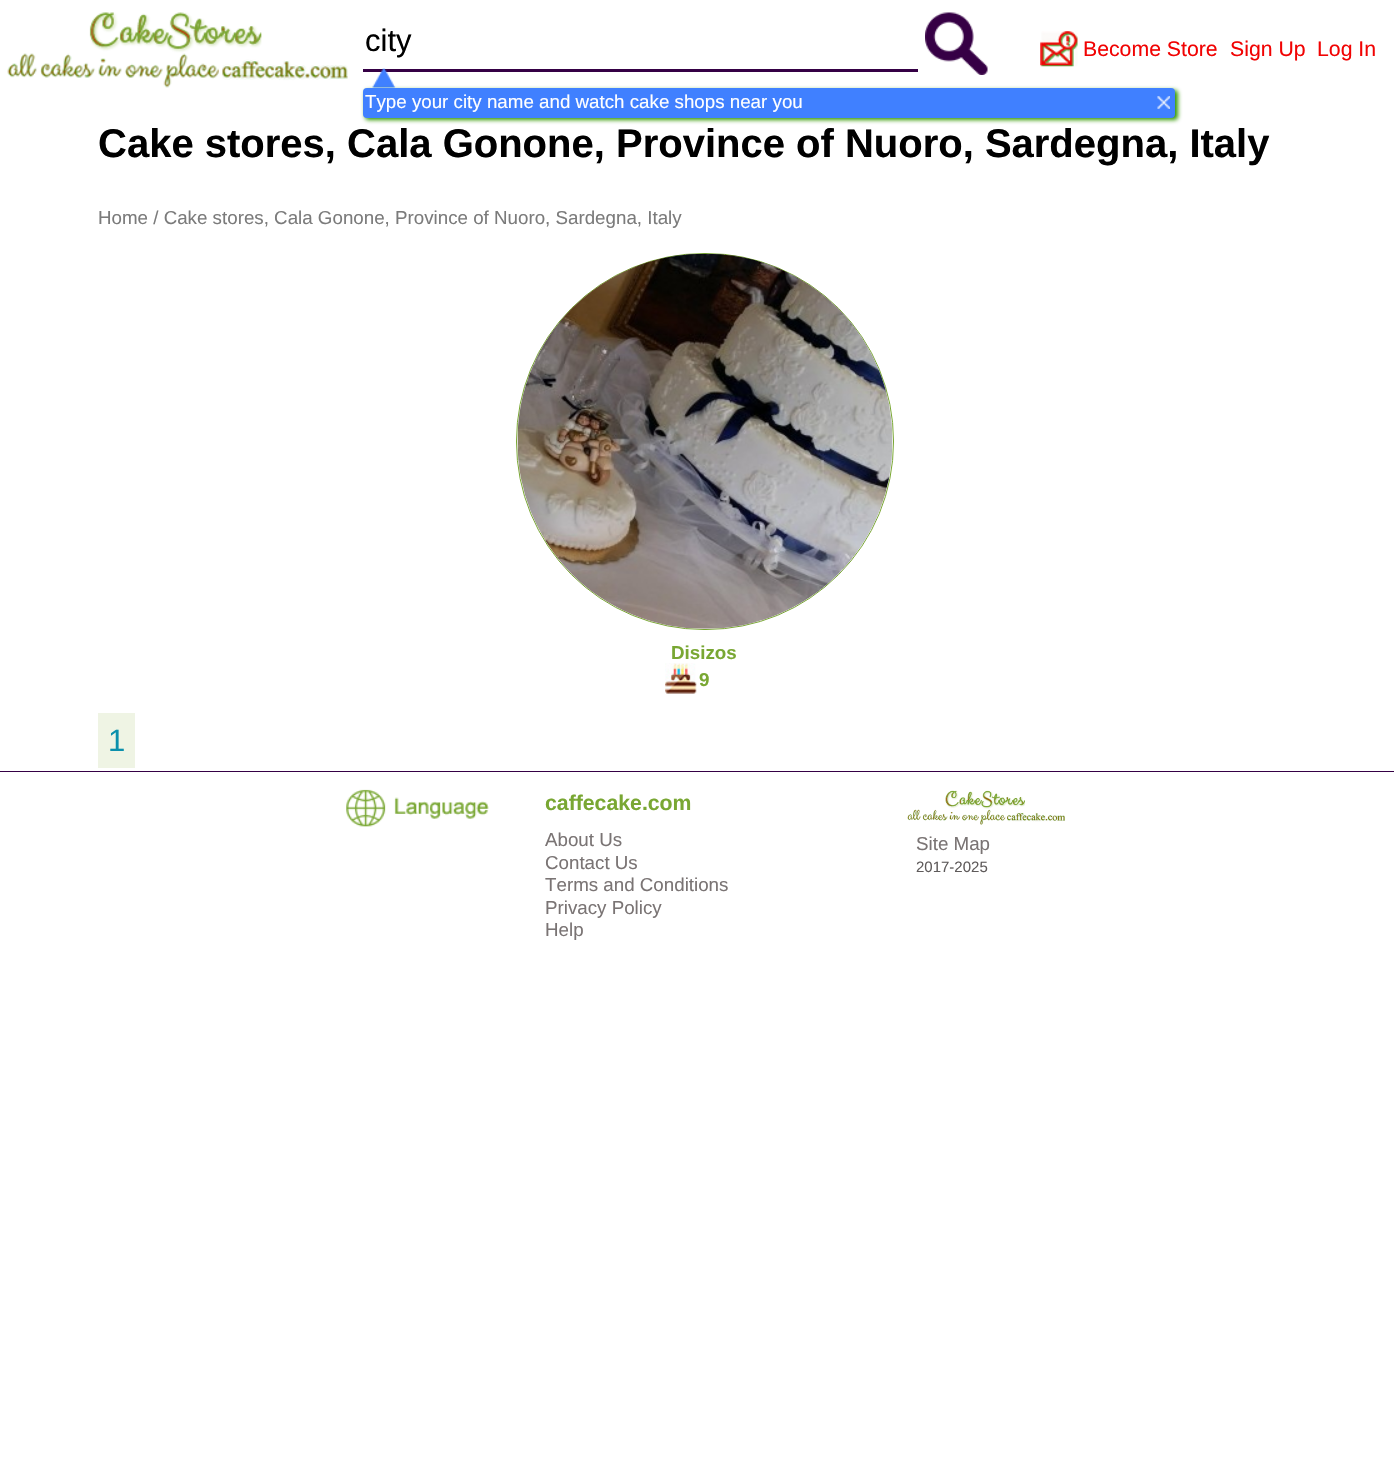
#include "include/core/SkBlurTypes.h"
#include "include/core/SkCanvas.h"
#include "include/core/SkData.h"
#include "include/core/SkFont.h"
#include "include/core/SkFontMgr.h"
#include "include/core/SkImage.h"
#include "include/core/SkMaskFilter.h"
#include "include/core/SkPaint.h"
#include "include/core/SkPathBuilder.h"
#include "include/core/SkTextBlob.h"
#include "include/effects/SkDashPathEffect.h"
#include "include/effects/SkGradientShader.h"
#include "include/utils/SkParsePath.h"

extern sk_sp<SkFontMgr> fontMgr;

static SkFont font(const char* family, int weight, float size, bool italic = false) {
    SkFontStyle style(weight, SkFontStyle::kNormal_Width,
        italic ? SkFontStyle::kItalic_Slant : SkFontStyle::kUpright_Slant);
    SkFont result(fontMgr->matchFamilyStyle(family, style), size);
    result.setSubpixel(true);
    return result;
}

static void drawLabel(SkCanvas* canvas, const char* s, float x, float y, const SkFont& font, SkColor color) {
    SkPaint ink(SkColor4f::FromColor(color));
    ink.setAntiAlias(true);
    canvas->drawString(s, x, y, font, ink);
}

static void fillRect(SkCanvas* canvas, float x, float y, float w, float h, SkColor color) {
    SkPaint ink(SkColor4f::FromColor(color));
    ink.setAntiAlias(true);
    canvas->drawRect(SkRect::MakeXYWH(x, y, w, h), ink);
}

static void fillRRect(SkCanvas* canvas, float x, float y, float w, float h, float radius, SkColor color) {
    SkPaint ink(SkColor4f::FromColor(color));
    ink.setAntiAlias(true);
    canvas->drawRoundRect(SkRect::MakeXYWH(x, y, w, h), radius, radius, ink);
}

static void drawPhoto(SkCanvas* canvas, const char* path, float x, float y, float w, float h) {
    auto image = SkImages::DeferredFromEncodedData(SkData::MakeFromFileName(path));
    canvas->drawImageRect(image, SkRect::MakeXYWH(x, y, w, h), SkSamplingOptions());
}

void draw(SkCanvas* canvas) {
    SkPaint paint;
    paint.setAntiAlias(true);
    canvas->clear(0xFFFFFFFF);
    drawPhoto(canvas, "assets/img1.png", 7, 12, 341, 76);
    fillRect(canvas, 363, 69, 555, 3, 0xFF350045);
    SkFont font1 = font("Liberation Sans", 400, 31);
    drawLabel(canvas, "city", 365, 51, font1, 0xFF000000);
    drawPhoto(canvas, "assets/img2.png", 925, 12, 63, 63);
    drawPhoto(canvas, "assets/img3.png", 372, 68, 24, 20);
    paint.setColor(0xFF339900);
    paint.setMaskFilter(SkMaskFilter::MakeBlur(kNormal_SkBlurStyle, 2));
    canvas->drawRoundRect(SkRect::MakeXYWH(365, 90, 813, 30), 4, 4, paint);
    paint.setMaskFilter(nullptr);
    fillRRect(canvas, 363, 88, 812, 30, 4, 0xFF4080FF);
    SkFont font2 = font("Liberation Sans", 400, 18.75f);
    drawLabel(canvas, "Type your city name and watch cake shops near you", 365, 108, font2, 0xFFFFFFFF);
    drawPhoto(canvas, "assets/img4.png", 1157, 96, 13, 13);
    drawPhoto(canvas, "assets/img5.png", 1040, 31, 38, 36);
    SkFont font3 = font("Liberation Sans", 400, 21.25f);
    drawLabel(canvas, "Become Store", 1083, 56, font3, 0xFFF10303);
    drawLabel(canvas, "Sign Up", 1230, 56, font3, 0xFFF10303);
    drawLabel(canvas, "Log In", 1317, 56, font3, 0xFFF10303);
    SkFont font4 = font("Liberation Sans", 700, 40);
    drawLabel(canvas, "Cake stores, Cala Gonone, Province of Nuoro, Sardegna, Italy", 98, 157, font4, 0xFF000000);
    drawLabel(canvas, "Home / Cake stores, Cala Gonone, Province of Nuoro, Sardegna, Italy", 98, 224, font2, 0xFF7B7B7B);
    paint.setStroke(true);
    paint.setStrokeWidth(1);
    paint.setColor(0xFF79A733);
    canvas->drawRoundRect(SkRect::MakeXYWH(516.5f, 253.5f, 377, 376), 187.5f, 187.5f, paint);
    drawPhoto(canvas, "assets/img6.png", 517, 253, 376, 376);
    SkFont font5 = font("Liberation Sans", 700, 18.75f);
    drawLabel(canvas, "Disizos", 671, 659, font5, 0xFF79A733);
    drawPhoto(canvas, "assets/img7.png", 665, 663, 32, 31);
    drawLabel(canvas, "9", 699, 686, font5, 0xFF79A733);
    fillRect(canvas, 98, 713, 37, 55, 0xFFEFF4E4);
    drawLabel(canvas, "1", 108, 751, font1, 0xFF0B90AC);
    fillRect(canvas, 0, 771, 1394, 1, 0xFF350045);
    drawPhoto(canvas, "assets/img8.png", 346, 789, 143, 38);
    SkFont font6 = font("Liberation Sans", 700, 21.25f);
    drawLabel(canvas, "caffecake.com", 545, 810, font6, 0xFF79A733);
    drawLabel(canvas, "About Us", 545, 846, font2, 0xFF7A7474);
    drawLabel(canvas, "Contact Us", 545, 869, font2, 0xFF7A7474);
    drawLabel(canvas, "Terms and Conditions", 545, 891, font2, 0xFF7A7474);
    drawLabel(canvas, "Privacy Policy", 545, 914, font2, 0xFF7A7474);
    drawLabel(canvas, "Help", 545, 936, font2, 0xFF7A7474);
    drawPhoto(canvas, "assets/img9.png", 907, 790, 158, 35);
    drawLabel(canvas, "Site Map", 916, 850, font2, 0xFF7A7474);
    SkFont font7 = font("Liberation Sans", 400, 15);
    drawLabel(canvas, "2017-2025", 916, 872, font7, 0xFF5F5B5B);
}
